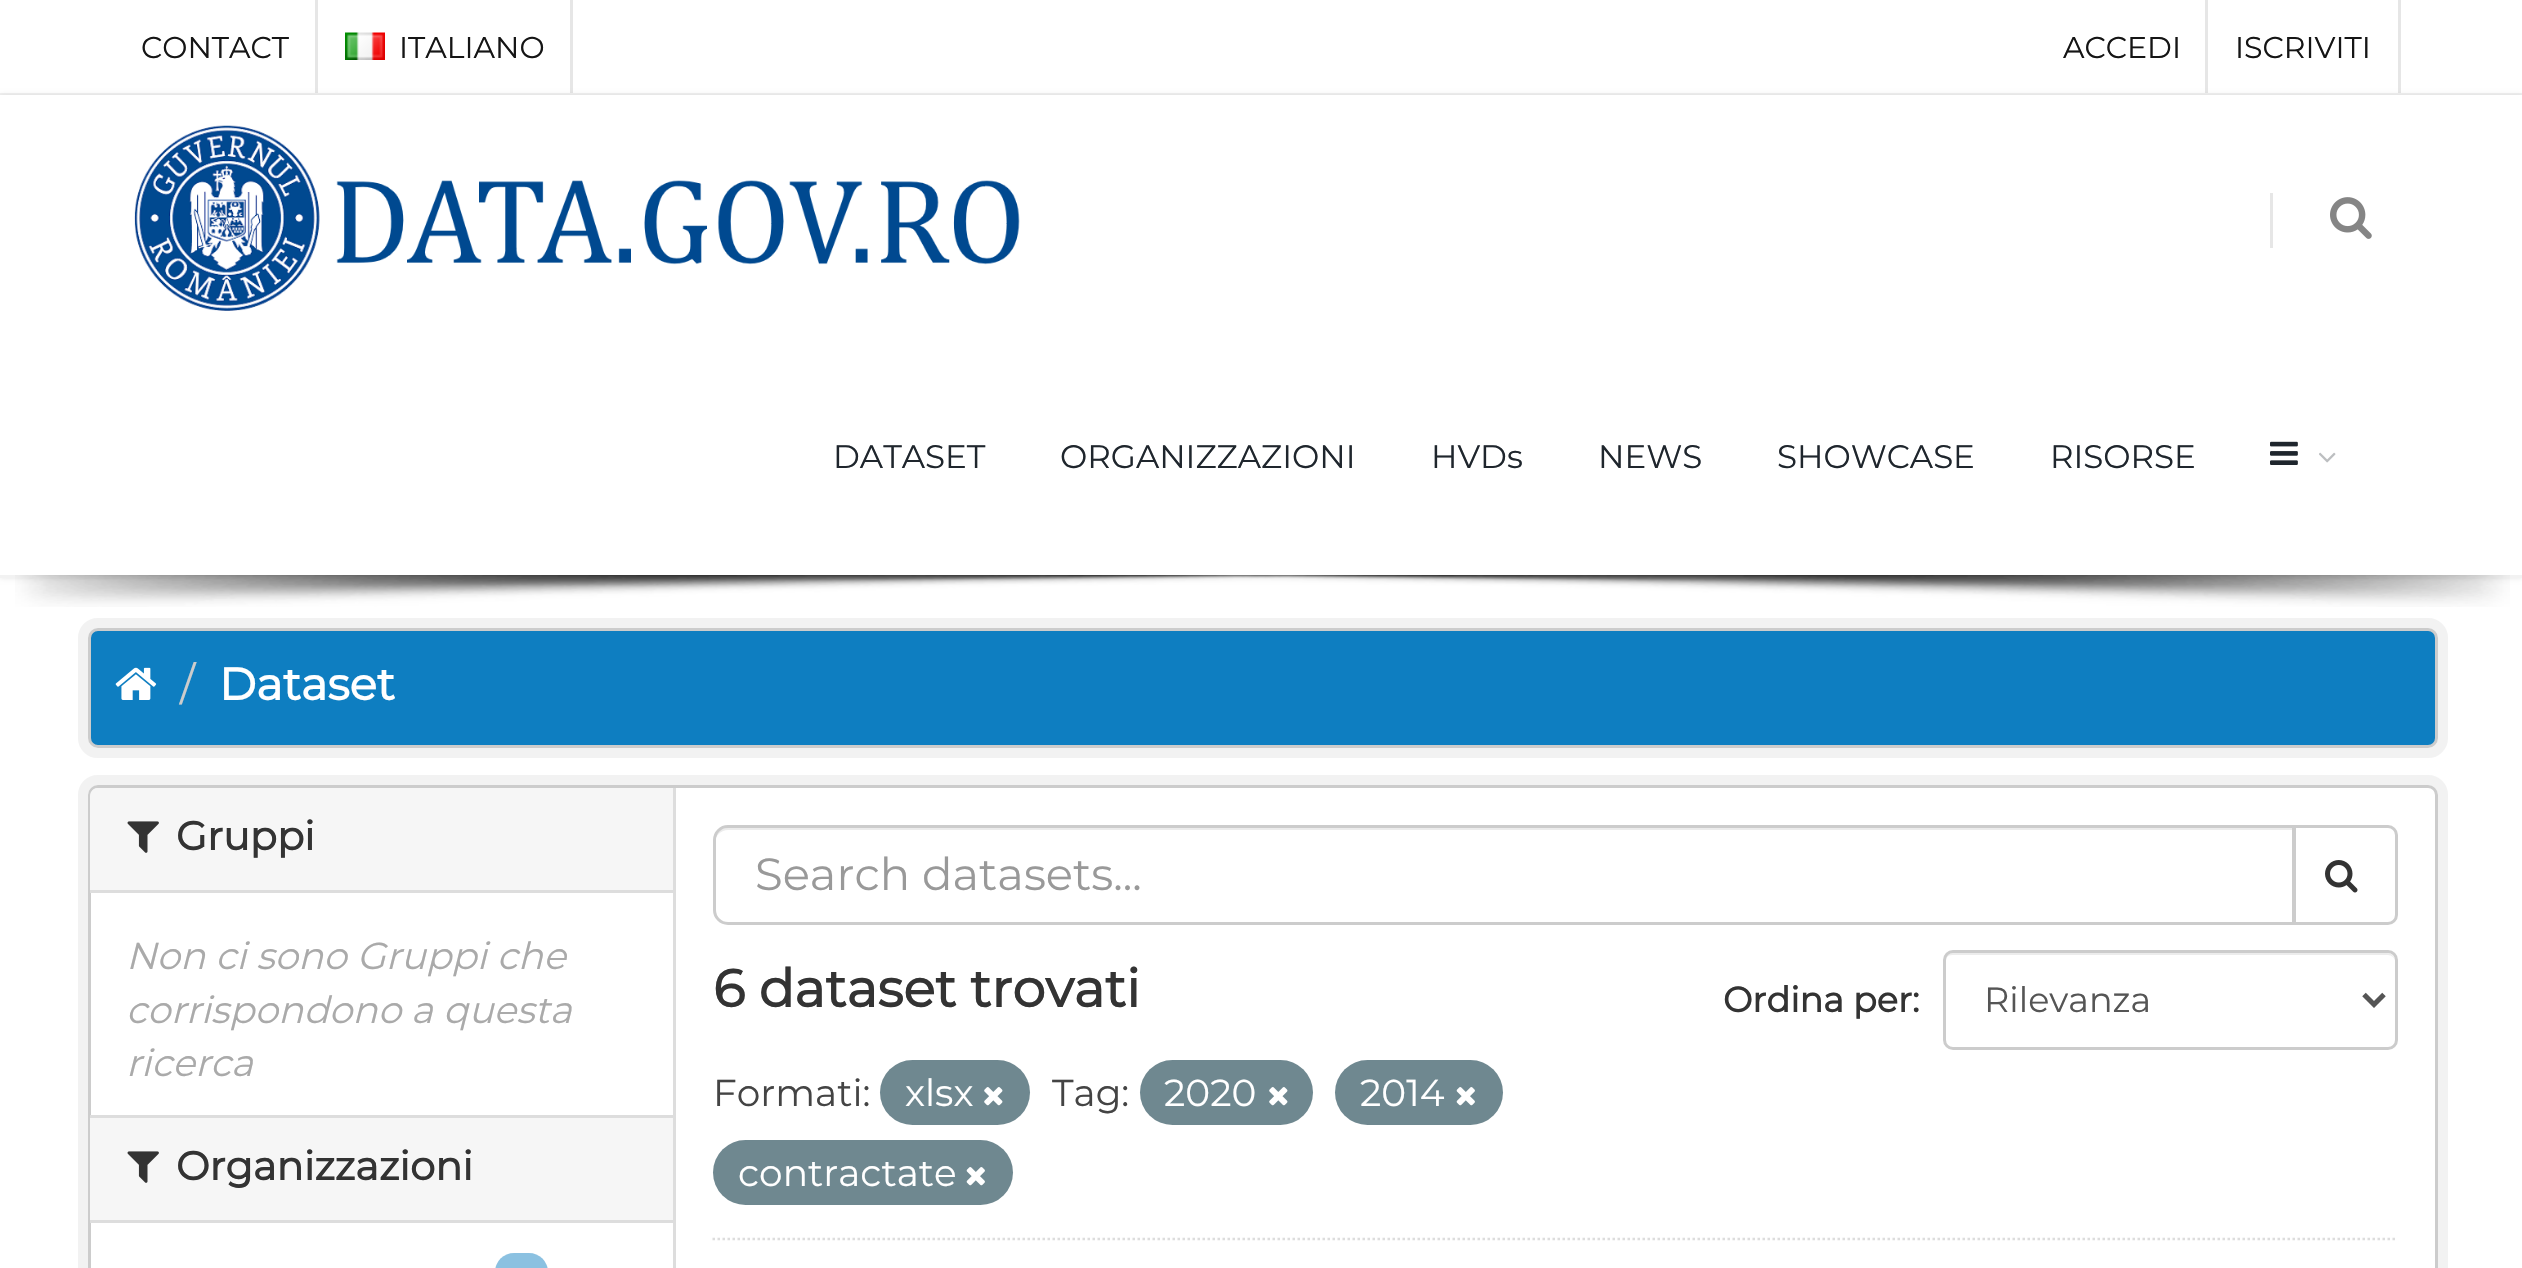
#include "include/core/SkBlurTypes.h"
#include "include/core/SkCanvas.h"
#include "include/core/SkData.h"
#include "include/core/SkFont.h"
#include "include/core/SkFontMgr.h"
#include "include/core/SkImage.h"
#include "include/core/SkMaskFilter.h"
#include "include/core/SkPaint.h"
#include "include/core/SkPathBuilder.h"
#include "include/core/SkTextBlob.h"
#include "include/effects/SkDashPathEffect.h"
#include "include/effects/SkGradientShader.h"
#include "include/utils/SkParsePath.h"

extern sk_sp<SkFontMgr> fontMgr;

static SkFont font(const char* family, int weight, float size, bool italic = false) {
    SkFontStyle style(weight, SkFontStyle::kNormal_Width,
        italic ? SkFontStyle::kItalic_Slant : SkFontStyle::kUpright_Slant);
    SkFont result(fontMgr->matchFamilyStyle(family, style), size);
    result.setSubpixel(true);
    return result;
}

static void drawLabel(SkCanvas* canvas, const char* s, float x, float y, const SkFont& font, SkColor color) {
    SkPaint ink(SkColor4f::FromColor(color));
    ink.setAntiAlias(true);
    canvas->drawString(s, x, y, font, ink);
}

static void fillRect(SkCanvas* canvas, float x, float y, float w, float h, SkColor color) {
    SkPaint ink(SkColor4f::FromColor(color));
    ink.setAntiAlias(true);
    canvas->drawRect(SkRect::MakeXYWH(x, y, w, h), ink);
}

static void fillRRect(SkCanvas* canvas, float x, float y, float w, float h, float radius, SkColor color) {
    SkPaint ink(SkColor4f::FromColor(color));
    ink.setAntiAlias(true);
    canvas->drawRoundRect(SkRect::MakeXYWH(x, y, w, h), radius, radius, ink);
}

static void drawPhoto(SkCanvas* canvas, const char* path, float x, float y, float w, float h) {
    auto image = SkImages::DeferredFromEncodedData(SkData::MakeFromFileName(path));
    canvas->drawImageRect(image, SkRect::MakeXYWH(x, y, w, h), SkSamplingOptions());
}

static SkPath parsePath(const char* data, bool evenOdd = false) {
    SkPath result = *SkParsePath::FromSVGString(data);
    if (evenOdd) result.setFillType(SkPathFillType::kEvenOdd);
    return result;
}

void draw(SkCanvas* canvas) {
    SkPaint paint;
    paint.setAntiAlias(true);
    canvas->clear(0xFFFFFFFF);
    fillRect(canvas, 0, 93, 2522, 2, 0xFFF2F2F2);
    fillRect(canvas, 315, 0, 3, 93, 0xFFE6E6E6);
    SkFont font1 = font("Montserrat", 100, 30);
    drawLabel(canvas, "CONTACT", 141, 58, font1, 0xFF151515);
    fillRect(canvas, 570, 0, 3, 93, 0xFFE6E6E6);
    drawPhoto(canvas, "assets/img1.png", 345, 32, 40, 28);
    drawLabel(canvas, "ITALIANO", 399, 58, font1, 0xFF151515);
    fillRect(canvas, 2205, 0, 3, 93, 0xFFE6E6E6);
    drawLabel(canvas, "ACCEDI", 2063, 58, font1, 0xFF151515);
    fillRect(canvas, 2398, 0, 3, 93, 0xFFE6E6E6);
    drawLabel(canvas, "ISCRIVITI", 2235, 58, font1, 0xFF151515);
    paint.setColor(0x1A000000);
    paint.setMaskFilter(SkMaskFilter::MakeBlur(kNormal_SkBlurStyle, 2.5f));
    canvas->drawRect(SkRect::MakeXYWH(0, 95, 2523, 483), paint);
    paint.setMaskFilter(nullptr);
    fillRect(canvas, 0, 95, 2522, 480, 0xFFFFFFFF);
    fillRect(canvas, 0, 575, 2522, 3, 0xFFF2F2F2);
    drawPhoto(canvas, "assets/img2.png", 134, 125, 886, 186);
    fillRect(canvas, 2270, 193, 3, 55, 0xFFE6E6E6);
    drawPhoto(canvas, "assets/img3.png", 2330, 197, 42, 42);
    SkFont font2 = font("Montserrat", 100, 32.5f);
    drawLabel(canvas, "DATASET", 833, 468, font2, 0xFF1F262D);
    drawLabel(canvas, "ORGANIZZAZIONI", 1060, 468, font2, 0xFF1F262D);
    drawLabel(canvas, "HVDs", 1431, 468, font2, 0xFF1F262D);
    drawLabel(canvas, "NEWS", 1598, 468, font2, 0xFF1F262D);
    drawLabel(canvas, "SHOWCASE", 1777, 468, font2, 0xFF1F262D);
    drawLabel(canvas, "RISORSE", 2050, 468, font2, 0xFF1F262D);
    drawPhoto(canvas, "assets/img4.png", 2270, 441, 28, 24);
    drawPhoto(canvas, "assets/img5.png", 2319, 452, 17, 11);
    drawPhoto(canvas, "assets/img6.png", 15, 575, 2495, 32);
    paint.setStroke(true);
    paint.setStrokeWidth(10);
    paint.setColor(0xFFF2F2F2);
    canvas->drawRoundRect(SkRect::MakeXYWH(83, 623, 2360, 130), 15, 15, paint);
    paint.setStroke(false);
    paint.setColor(0xFF0E7EC1);
    canvas->drawRoundRect(SkRect::MakeXYWH(89.5f, 629.5f, 2347, 117), 8.5f, 8.5f, paint);
    paint.setStroke(true);
    paint.setStrokeWidth(3);
    paint.setColor(0xFFCCCCCC);
    canvas->drawRoundRect(SkRect::MakeXYWH(89.5f, 629.5f, 2347, 117), 8.5f, 8.5f, paint);
    drawPhoto(canvas, "assets/img7.png", 115, 667, 42, 33);
    SkFont font3 = font("Montserrat", 100, 45);
    drawLabel(canvas, "/", 180, 700, font3, 0xFFCCCCCC);
    SkFont font4 = font("Montserrat", 700, 45);
    drawLabel(canvas, "Dataset", 219, 700, font4, 0xFFFFFFFF);
    paint.setStrokeWidth(10);
    paint.setColor(0xFFF2F2F2);
    canvas->drawRoundRect(SkRect::MakeXYWH(83, 780, 2360, 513), 15, 15, paint);
    paint.setStroke(false);
    paint.setColor(0xFFFFFFFF);
    canvas->drawRoundRect(SkRect::MakeXYWH(89.5f, 786.5f, 2347, 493), 8.5f, 8.5f, paint);
    paint.setStroke(true);
    paint.setStrokeWidth(3);
    paint.setColor(0xFFCCCCCC);
    canvas->drawRoundRect(SkRect::MakeXYWH(89.5f, 786.5f, 2347, 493), 8.5f, 8.5f, paint);
    paint.setStroke(false);
    paint.setColor(0xFFF6F6F6);
    canvas->drawPath(parsePath("M98 788H673V893H90V796C90 791.5 93.5 788 98 788Z"), paint);
    fillRect(canvas, 90, 890, 583, 3, 0xFFDDDDDD);
    drawPhoto(canvas, "assets/img8.png", 127, 821, 32, 32);
    SkFont font5 = font("Montserrat", 700, 40);
    drawLabel(canvas, "Gruppi", 176, 850, font5, 0xFF333333);
    SkFont font6 = font("Montserrat", 100, 37.5f, true);
    drawLabel(canvas, "Non ci sono Gruppi che", 126, 969, font6, 0xFFAAAAAA);
    drawLabel(canvas, "corrispondono a questa", 126, 1023, font6, 0xFFAAAAAA);
    drawLabel(canvas, "ricerca", 126, 1076, font6, 0xFFAAAAAA);
    fillRect(canvas, 90, 1118, 583, 102, 0xFFF6F6F6);
    fillRect(canvas, 90, 1115, 583, 3, 0xFFDDDDDD);
    fillRect(canvas, 90, 1220, 583, 3, 0xFFDDDDDD);
    drawPhoto(canvas, "assets/img8.png", 127, 1151, 32, 32);
    drawLabel(canvas, "Organizzazioni", 176, 1180, font5, 0xFF333333);
    fillRRect(canvas, 495, 1253, 53, 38, 22.5f, 0xFF8BC1E1);
    fillRect(canvas, 673, 788, 3, 480, 0xFFDDDDDD);
    paint.setStroke(true);
    paint.setStrokeWidth(2.5f);
    paint.setColor(0xFFDDDDDD);
    paint.setPathEffect(SkDashPathEffect::Make({{2.5f, 2.5f}}, 0));
    canvas->drawPath(parsePath("M712.5 1239H2397.5"), paint);
    paint.setPathEffect(nullptr);
    paint.setStroke(false);
    paint.setColor(0xFFECECEC);
    canvas->drawPath(parsePath("M728 830H2292V923H2293V828H728C721 828 715 834 715 841V842C715 836 721 830 728 830Z"), paint);
    paint.setStroke(true);
    paint.setStrokeWidth(3);
    paint.setColor(0xFFCCCCCC);
    canvas->drawPath(parsePath("M728 826.5H2293.5V923.5H728C720.5 923.5 714.5 917.5 714.5 910V840C714.5 832.5 720.5 826.5 728 826.5Z"), paint);
    drawLabel(canvas, "Search datasets...", 755, 890, font3, 0xFF999999);
    paint.setStroke(false);
    paint.setColor(0xFFFFFFFF);
    canvas->drawPath(parsePath("M2294.5 826.5H2388C2392.5 826.5 2396.5 830.5 2396.5 835V915C2396.5 919.5 2392.5 923.5 2388 923.5H2294.5Z"), paint);
    paint.setStroke(true);
    paint.setColor(0xFFCCCCCC);
    canvas->drawPath(parsePath("M2294.5 826.5H2388C2392.5 826.5 2396.5 830.5 2396.5 835V915C2396.5 919.5 2392.5 923.5 2388 923.5H2294.5Z"), paint);
    drawPhoto(canvas, "assets/img9.png", 2325, 860, 33, 33);
    SkFont font7 = font("Montserrat", 700, 52.5f);
    drawLabel(canvas, "6 dataset trovati", 713, 1007, font7, 0xFF333333);
    SkFont font8 = font("Montserrat", 700, 35);
    drawLabel(canvas, "Ordina per:", 1723, 1012, font8, 0xFF333333);
    paint.setStroke(false);
    paint.setColor(0xFFECECEC);
    canvas->drawPath(parsePath("M1952 955H2388C2392 955 2395 958 2395 962C2395 957 2392 953 2387 953H1953C1948 953 1945 957 1945 962C1945 958 1948 955 1952 955Z"), paint);
    paint.setStroke(true);
    paint.setColor(0xFFCCCCCC);
    canvas->drawRoundRect(SkRect::MakeXYWH(1944.5f, 951.5f, 452, 97), 8.5f, 8.5f, paint);
    paint.setStrokeWidth(5);
    paint.setColor(0xFF555555);
    canvas->drawPath(parsePath("M2364 994.5L2374 1004.5L2384 994.5"), paint);
    SkFont font9 = font("Montserrat", 100, 35);
    drawLabel(canvas, "Rilevanza", 1984, 1012, font9, 0xFF555555);
    SkFont font10 = font("Montserrat", 100, 37.5f);
    drawLabel(canvas, "Formati:", 713, 1106, font10, 0xFF444444);
    fillRRect(canvas, 880, 1060, 150, 65, 32.5f, 0xFF6F8890);
    drawLabel(canvas, "xlsx", 905, 1106, font10, 0xFFFFFFFF);
    drawPhoto(canvas, "assets/img10.png", 984, 1087, 19, 19);
    drawLabel(canvas, "Tag:", 1052, 1106, font10, 0xFF444444);
    fillRRect(canvas, 1140, 1060, 173, 65, 32.5f, 0xFF6F8890);
    drawLabel(canvas, "2020", 1164, 1106, font10, 0xFFFFFFFF);
    drawPhoto(canvas, "assets/img10.png", 1269, 1087, 19, 19);
    fillRRect(canvas, 1335, 1060, 168, 65, 32.5f, 0xFF6F8890);
    drawLabel(canvas, "2014", 1360, 1106, font10, 0xFFFFFFFF);
    drawPhoto(canvas, "assets/img11.png", 1456, 1087, 19, 19);
    fillRRect(canvas, 713, 1140, 300, 65, 32.5f, 0xFF6F8890);
    drawLabel(canvas, "contractate", 738, 1186, font10, 0xFFFFFFFF);
    drawPhoto(canvas, "assets/img11.png", 966, 1167, 19, 19);
}
